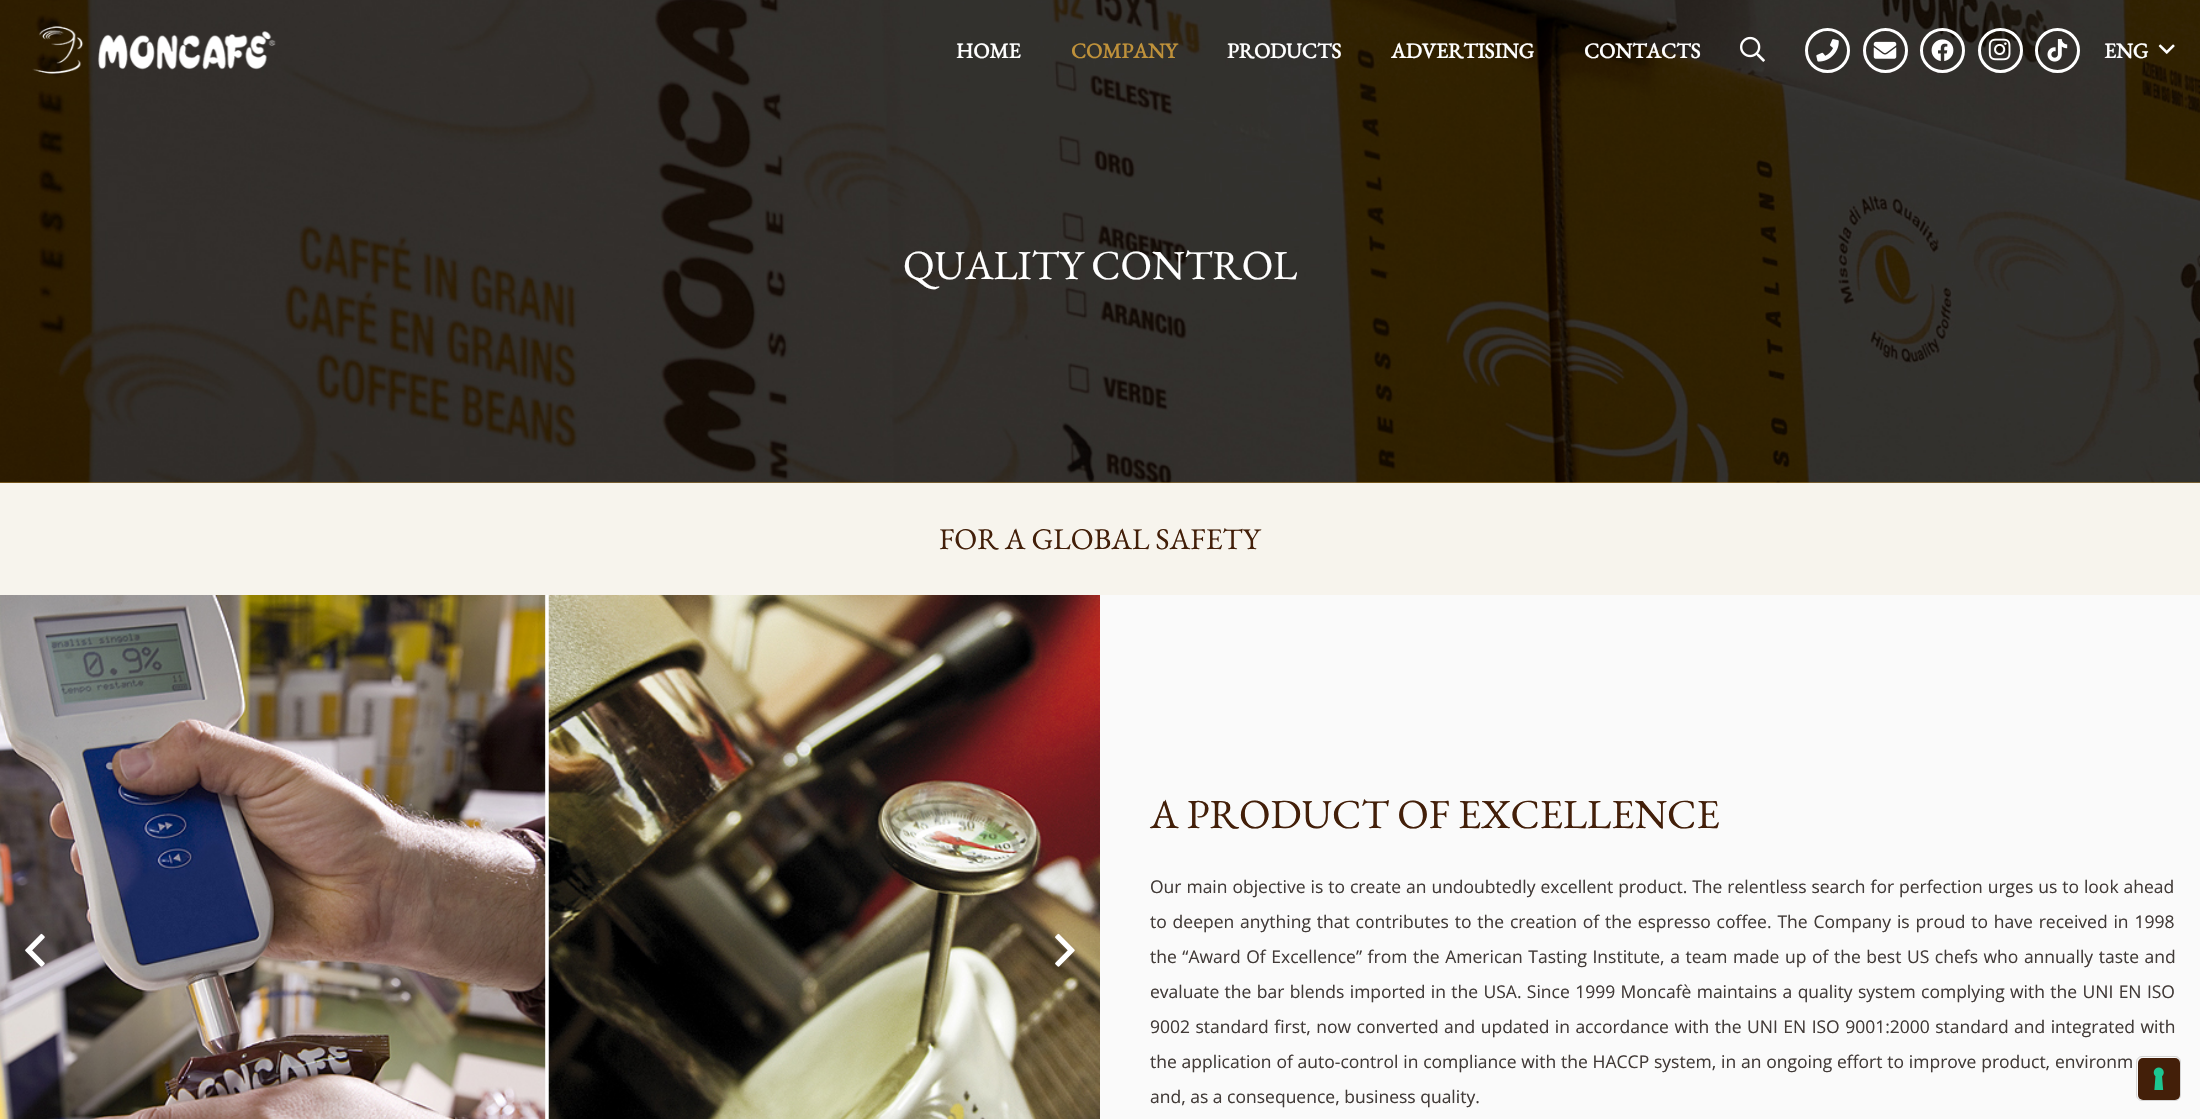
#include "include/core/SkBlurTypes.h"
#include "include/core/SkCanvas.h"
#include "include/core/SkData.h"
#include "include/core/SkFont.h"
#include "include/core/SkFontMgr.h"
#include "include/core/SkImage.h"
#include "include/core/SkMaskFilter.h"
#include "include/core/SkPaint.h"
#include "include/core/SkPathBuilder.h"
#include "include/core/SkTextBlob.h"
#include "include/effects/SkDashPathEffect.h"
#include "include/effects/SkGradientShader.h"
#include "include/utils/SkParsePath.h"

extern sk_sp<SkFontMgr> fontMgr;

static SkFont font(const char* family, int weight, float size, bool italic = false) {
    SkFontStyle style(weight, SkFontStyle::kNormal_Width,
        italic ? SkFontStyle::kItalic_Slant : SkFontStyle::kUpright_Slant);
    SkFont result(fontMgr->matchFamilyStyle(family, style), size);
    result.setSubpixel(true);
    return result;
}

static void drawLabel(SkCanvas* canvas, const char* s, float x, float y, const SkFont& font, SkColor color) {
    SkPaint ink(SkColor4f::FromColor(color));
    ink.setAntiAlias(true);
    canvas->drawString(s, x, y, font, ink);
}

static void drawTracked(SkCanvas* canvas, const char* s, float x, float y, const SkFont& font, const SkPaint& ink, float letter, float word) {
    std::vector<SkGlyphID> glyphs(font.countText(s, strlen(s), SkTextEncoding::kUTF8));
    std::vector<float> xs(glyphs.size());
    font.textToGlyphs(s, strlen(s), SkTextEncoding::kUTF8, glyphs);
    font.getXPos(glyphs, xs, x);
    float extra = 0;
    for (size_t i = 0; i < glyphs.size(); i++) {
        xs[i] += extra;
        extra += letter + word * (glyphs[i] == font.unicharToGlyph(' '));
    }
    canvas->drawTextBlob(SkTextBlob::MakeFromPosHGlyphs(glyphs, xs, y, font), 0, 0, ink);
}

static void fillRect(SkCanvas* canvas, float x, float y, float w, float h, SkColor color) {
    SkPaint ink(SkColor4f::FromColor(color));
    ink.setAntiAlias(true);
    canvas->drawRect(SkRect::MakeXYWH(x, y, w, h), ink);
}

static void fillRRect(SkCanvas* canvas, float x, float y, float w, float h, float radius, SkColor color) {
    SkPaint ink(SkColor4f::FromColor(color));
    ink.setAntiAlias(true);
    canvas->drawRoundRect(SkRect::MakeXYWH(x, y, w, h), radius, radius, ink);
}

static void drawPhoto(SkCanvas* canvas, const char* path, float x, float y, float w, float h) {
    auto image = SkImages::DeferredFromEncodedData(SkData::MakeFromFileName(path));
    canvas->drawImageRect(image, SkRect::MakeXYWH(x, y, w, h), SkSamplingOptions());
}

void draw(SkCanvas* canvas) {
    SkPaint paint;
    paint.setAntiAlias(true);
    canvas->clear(0xFFBF913A);
    drawPhoto(canvas, "assets/img9.png", 0, 0, 2200, 483);
    drawPhoto(canvas, "assets/img1.png", 32, 26, 244, 48);
    SkFont font1 = font("EB Garamond", 700, 21.25f);
    drawLabel(canvas, "HOME", 956, 58, font1, 0xFFFFFFFF);
    drawLabel(canvas, "COMPANY", 1071, 58, font1, 0xFFBF913A);
    drawLabel(canvas, "PRODUCTS", 1227, 58, font1, 0xFFFFFFFF);
    drawLabel(canvas, "ADVERTISING", 1391, 58, font1, 0xFFFFFFFF);
    drawLabel(canvas, "CONTACTS", 1584, 58, font1, 0xFFFFFFFF);
    drawPhoto(canvas, "assets/img2.png", 1740, 36, 25, 26);
    paint.setStroke(true);
    paint.setStrokeWidth(3);
    paint.setColor(0xFFFFFFFF);
    canvas->drawCircle(1827.5f, 50.5f, 21, paint);
    drawPhoto(canvas, "assets/img3.png", 1816, 39, 23, 23);
    canvas->drawCircle(1885.5f, 50.5f, 21, paint);
    drawPhoto(canvas, "assets/img4.png", 1873, 41, 24, 18);
    canvas->drawCircle(1942.5f, 50.5f, 21, paint);
    drawPhoto(canvas, "assets/img5.png", 1931, 39, 23, 22);
    canvas->drawCircle(2000.5f, 50.5f, 21, paint);
    drawPhoto(canvas, "assets/img6.png", 1988, 38, 23, 23);
    canvas->drawCircle(2057.5f, 50.5f, 21, paint);
    drawPhoto(canvas, "assets/img7.png", 2047, 39, 21, 23);
    drawLabel(canvas, "ENG", 2104, 58, font1, 0xFFFFFFFF);
    drawPhoto(canvas, "assets/img8.png", 2158, 44, 17, 10);
    SkFont font2 = font("EB Garamond", 400, 41.25f);
    drawLabel(canvas, "QUALITY CONTROL", 903, 279, font2, 0xFFFFFFFF);
    fillRect(canvas, 0, 483, 2200, 112, 0xFFF7F4ED);
    SkFont font3 = font("EB Garamond", 400, 30);
    drawLabel(canvas, "FOR A GLOBAL SAFETY", 939, 549, font3, 0xFF431F09);
    fillRect(canvas, 1100, 595, 1100, 524, 0xFFFAFAFA);
    drawPhoto(canvas, "assets/img10.png", 0, 595, 1100, 524);
    drawPhoto(canvas, "assets/img11.png", 25, 933, 20, 34);
    drawPhoto(canvas, "assets/img12.png", 1055, 933, 20, 34);
    drawLabel(canvas, "A PRODUCT OF EXCELLENCE", 1150, 828, font2, 0xFF431F09);
    SkFont font4 = font("Open Sans", 400, 17.5f);
    paint.setStroke(false);
    paint.setColor(0xFF423B38);
    drawTracked(canvas, "Our main objective is to create an undoubtedly excellent product. The relentless search for perfection urges us to look ahead", 1150, 893, font4, paint, 0, 0.4f);
    drawTracked(canvas, "to deepen anything that contributes to the creation of the espresso coffee. The Company is proud to have received in 1998", 1150, 928, font4, paint, 0, 1.3f);
    drawTracked(canvas, "the “Award Of Excellence” from the American Tasting Institute, a team made up of the best US chefs who annually taste and", 1150, 963, font4, paint, 0, 1);
    drawTracked(canvas, "evaluate the bar blends imported in the USA. Since 1999 Moncafè maintains a quality system complying with the UNI EN ISO", 1150, 998, font4, paint, 0, 0.8f);
    drawTracked(canvas, "9002 standard first, now converted and updated in accordance with the UNI EN ISO 9001:2000 standard and integrated with", 1150, 1033, font4, paint, 0, 0.9f);
    drawTracked(canvas, "the application of auto-control in compliance with the HACCP system, in an ongoing effort to improve product, environm", 1150, 1068, font4, paint, 0, 0.25f);
    drawLabel(canvas, "and, as a consequence, business quality.", 1150, 1103, font4, 0xFF423B38);
    paint.setStroke(true);
    paint.setStrokeWidth(1);
    paint.setColor(0x26000000);
    canvas->drawRoundRect(SkRect::MakeXYWH(2136.5f, 1056.5f, 44, 44), 5.5f, 5.5f, paint);
    fillRRect(canvas, 2138, 1058, 42, 42, 5, 0xFF431F09);
    drawPhoto(canvas, "assets/img13.png", 2153, 1067, 11, 23);
}
